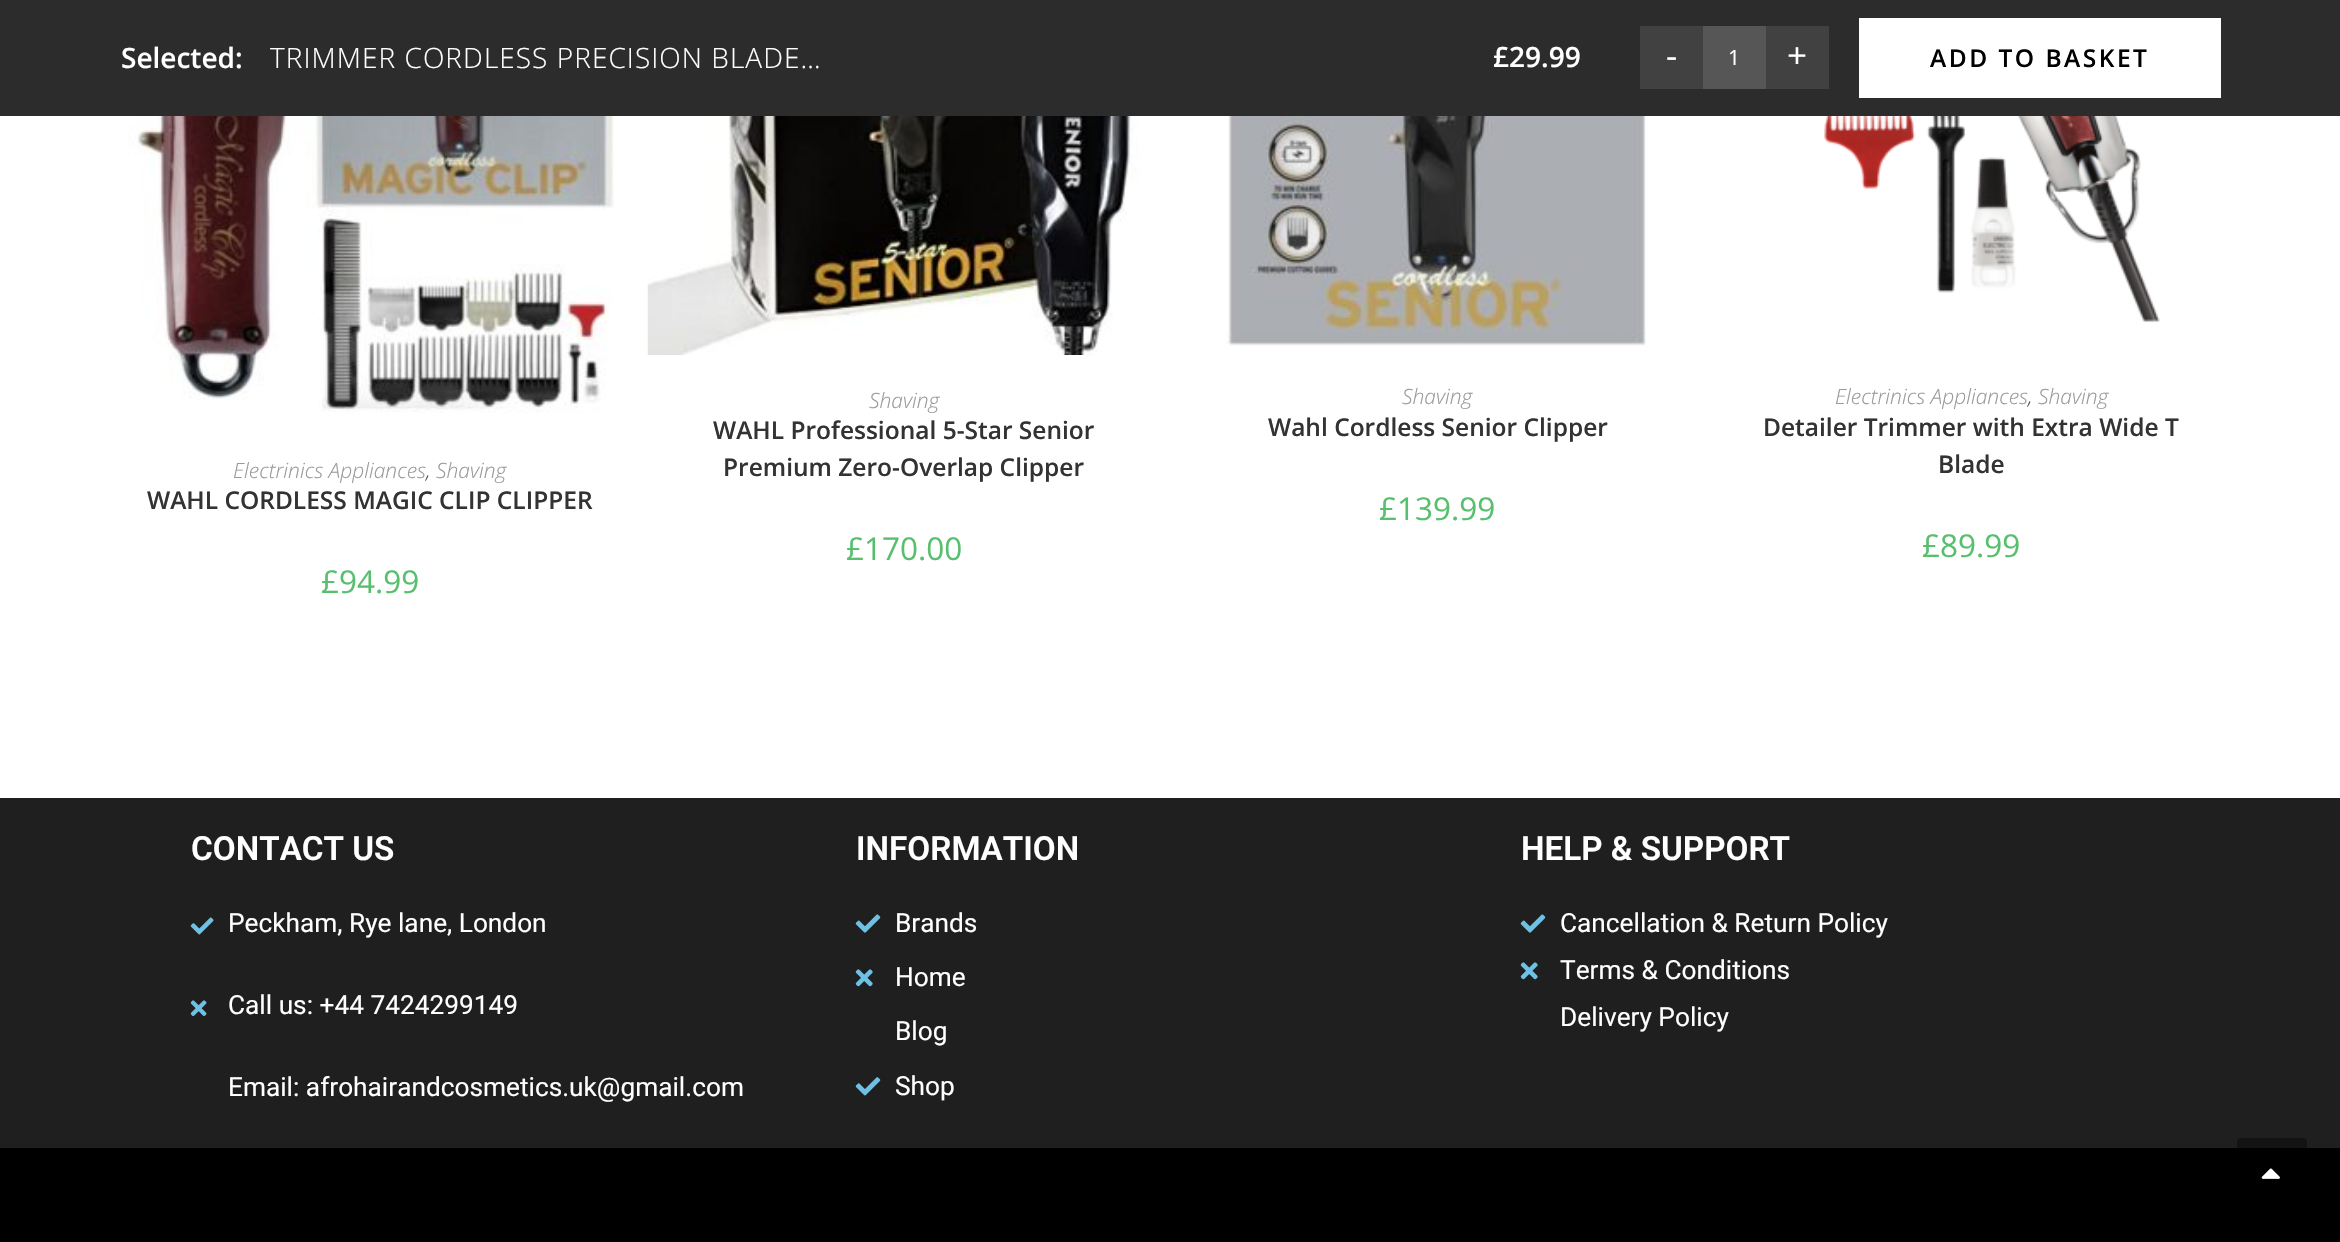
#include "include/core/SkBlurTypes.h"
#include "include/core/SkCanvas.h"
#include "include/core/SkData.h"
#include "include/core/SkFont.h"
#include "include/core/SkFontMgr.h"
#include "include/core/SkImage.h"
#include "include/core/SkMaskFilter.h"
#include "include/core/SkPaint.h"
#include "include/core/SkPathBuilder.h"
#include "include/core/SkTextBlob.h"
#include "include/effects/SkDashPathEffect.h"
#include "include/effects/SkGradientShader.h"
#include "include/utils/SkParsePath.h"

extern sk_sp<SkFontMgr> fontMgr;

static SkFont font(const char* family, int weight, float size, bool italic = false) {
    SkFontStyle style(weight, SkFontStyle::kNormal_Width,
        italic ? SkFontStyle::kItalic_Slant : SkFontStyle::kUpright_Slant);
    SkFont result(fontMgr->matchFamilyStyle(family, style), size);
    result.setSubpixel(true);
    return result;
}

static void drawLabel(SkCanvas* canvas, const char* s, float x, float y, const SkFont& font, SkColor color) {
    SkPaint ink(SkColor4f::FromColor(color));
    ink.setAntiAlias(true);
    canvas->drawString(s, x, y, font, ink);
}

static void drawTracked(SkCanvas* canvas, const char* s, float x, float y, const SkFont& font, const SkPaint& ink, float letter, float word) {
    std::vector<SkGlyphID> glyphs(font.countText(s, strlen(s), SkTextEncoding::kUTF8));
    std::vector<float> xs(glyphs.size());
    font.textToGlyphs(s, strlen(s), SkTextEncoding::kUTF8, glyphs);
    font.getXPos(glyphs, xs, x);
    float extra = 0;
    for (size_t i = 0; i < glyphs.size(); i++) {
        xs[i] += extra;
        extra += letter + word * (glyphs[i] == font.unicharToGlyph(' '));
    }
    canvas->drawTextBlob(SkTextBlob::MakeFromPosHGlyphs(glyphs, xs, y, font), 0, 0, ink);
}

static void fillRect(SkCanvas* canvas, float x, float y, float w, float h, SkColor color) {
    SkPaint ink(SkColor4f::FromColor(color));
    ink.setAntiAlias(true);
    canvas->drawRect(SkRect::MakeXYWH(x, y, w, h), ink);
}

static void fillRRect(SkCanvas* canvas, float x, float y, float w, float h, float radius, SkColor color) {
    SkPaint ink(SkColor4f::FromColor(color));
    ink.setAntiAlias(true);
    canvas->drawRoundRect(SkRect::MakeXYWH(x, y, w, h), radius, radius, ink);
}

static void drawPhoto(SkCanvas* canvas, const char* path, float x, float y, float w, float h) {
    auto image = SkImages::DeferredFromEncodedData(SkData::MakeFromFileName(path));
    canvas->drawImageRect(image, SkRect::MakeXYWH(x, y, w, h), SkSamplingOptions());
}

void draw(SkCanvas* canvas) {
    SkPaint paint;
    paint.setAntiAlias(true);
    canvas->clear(0xFFFFFFFF);
    fillRect(canvas, 0, 0, 2340, 116, 0xFF2C2C2C);
    SkFont font1 = font("Open Sans", 600, 28);
    drawLabel(canvas, "Selected:", 121, 68, font1, 0xFFFFFFFF);
    SkFont font2 = font("Open Sans", 300, 28);
    paint.setColor(0xFFFFFFFF);
    drawTracked(canvas, "TRIMMER CORDLESS PRECISION BLADE…", 270, 68, font2, paint, 1.05f, 0);
    drawLabel(canvas, "£29.99", 1493, 67, font1, 0xFFFFFFFF);
    fillRect(canvas, 1640, 26, 63, 63, 0xFF414141);
    SkFont font3 = font("Open Sans", 400, 35);
    drawLabel(canvas, "-", 1666, 68, font3, 0xFFFFFFFF);
    fillRect(canvas, 1703, 26, 63, 63, 0xFF565656);
    SkFont font4 = font("Open Sans", 400, 21);
    drawLabel(canvas, "1", 1728, 65, font4, 0xFFFFFFFF);
    fillRect(canvas, 1766, 26, 63, 63, 0xFF414141);
    drawLabel(canvas, "+", 1787, 68, font3, 0xFFFFFFFF);
    fillRect(canvas, 1859, 18, 362, 80, 0xFFFFFFFF);
    SkFont font5 = font("Open Sans", 600, 24.5f);
    paint.setColor(0xFF000000);
    drawTracked(canvas, "ADD TO BASKET", 1930, 67, font5, paint, 2.5f, 0);
    drawPhoto(canvas, "assets/img1.png", 114, 116, 500, 297);
    SkFont font6 = font("Open Sans", 300, 21, true);
    drawLabel(canvas, "Electrinics Appliances", 233, 478, font6, 0xFF999999);
    drawLabel(canvas, ",", 426, 478, font6, 0xFF4A4A4A);
    drawLabel(canvas, "Shaving", 436, 478, font6, 0xFF999999);
    drawLabel(canvas, "WAHL CORDLESS MAGIC CLIP CLIPPER", 147, 509, font5, 0xFF333333);
    SkFont font7 = font("Open Sans", 400, 31.5f);
    drawLabel(canvas, "£94.99", 321, 593, font7, 0xFF57BF6D);
    drawPhoto(canvas, "assets/img2.png", 647, 116, 493, 239);
    drawLabel(canvas, "Shaving", 869, 408, font6, 0xFF999999);
    drawLabel(canvas, "WAHL Professional 5-Star Senior", 713, 439, font5, 0xFF333333);
    drawLabel(canvas, "Premium Zero-Overlap Clipper", 723, 476, font5, 0xFF333333);
    drawLabel(canvas, "£170.00", 846, 560, font7, 0xFF57BF6D);
    drawPhoto(canvas, "assets/img3.png", 1226, 116, 420, 230);
    drawLabel(canvas, "Shaving", 1402, 404, font6, 0xFF999999);
    drawLabel(canvas, "Wahl Cordless Senior Clipper", 1268, 436, font5, 0xFF333333);
    drawLabel(canvas, "£139.99", 1379, 520, font7, 0xFF57BF6D);
    drawPhoto(canvas, "assets/img4.png", 1824, 116, 336, 207);
    drawLabel(canvas, "Electrinics Appliances", 1835, 404, font6, 0xFF999999);
    drawLabel(canvas, ",", 2028, 404, font6, 0xFF4A4A4A);
    drawLabel(canvas, "Shaving", 2038, 404, font6, 0xFF999999);
    drawLabel(canvas, "Detailer Trimmer with Extra Wide T", 1763, 436, font5, 0xFF333333);
    drawLabel(canvas, "Blade", 1938, 473, font5, 0xFF333333);
    drawLabel(canvas, "£89.99", 1922, 557, font7, 0xFF57BF6D);
    fillRect(canvas, 0, 798, 2340, 350, 0xFF1F1F1F);
    SkFont font8 = font("Roboto", 600, 33.25f);
    drawLabel(canvas, "CONTACT US", 191, 860, font8, 0xFFFFFFFF);
    drawPhoto(canvas, "assets/img5.png", 190, 917, 24, 18);
    SkFont font9 = font("Roboto", 400, 26.25f);
    drawLabel(canvas, "Peckham, Rye lane, London", 228, 932, font9, 0xFFFFFFFF);
    drawPhoto(canvas, "assets/img6.png", 190, 1000, 17, 16);
    drawLabel(canvas, "Call us: +44 7424299149", 228, 1014, font9, 0xFFFFFFFF);
    drawLabel(canvas, "Email: afrohairandcosmetics.uk@gmail.com", 228, 1096, font9, 0xFFFFFFFF);
    drawLabel(canvas, "INFORMATION", 856, 860, font8, 0xFFFFFFFF);
    drawPhoto(canvas, "assets/img7.png", 855, 914, 26, 19);
    drawLabel(canvas, "Brands", 895, 932, font9, 0xFFFFFFFF);
    drawPhoto(canvas, "assets/img8.png", 855, 969, 18, 18);
    drawLabel(canvas, "Home", 895, 986, font9, 0xFFFFFFFF);
    drawLabel(canvas, "Blog", 895, 1040, font9, 0xFFFFFFFF);
    drawPhoto(canvas, "assets/img9.png", 855, 1077, 26, 19);
    drawLabel(canvas, "Shop", 895, 1095, font9, 0xFFFFFFFF);
    drawLabel(canvas, "HELP & SUPPORT", 1521, 860, font8, 0xFFFFFFFF);
    drawPhoto(canvas, "assets/img7.png", 1520, 914, 26, 19);
    drawLabel(canvas, "Cancellation & Return Policy", 1560, 932, font9, 0xFFFFFFFF);
    drawPhoto(canvas, "assets/img8.png", 1520, 962, 18, 18);
    drawLabel(canvas, "Terms & Conditions", 1560, 979, font9, 0xFFFFFFFF);
    drawLabel(canvas, "Delivery Policy", 1560, 1026, font9, 0xFFFFFFFF);
    fillRect(canvas, 0, 1148, 2340, 94, 0xFF000000);
    fillRRect(canvas, 2237, 1138, 70, 70, 4, 0x66000000);
    drawPhoto(canvas, "assets/img10.png", 2261, 1168, 19, 11);
}
